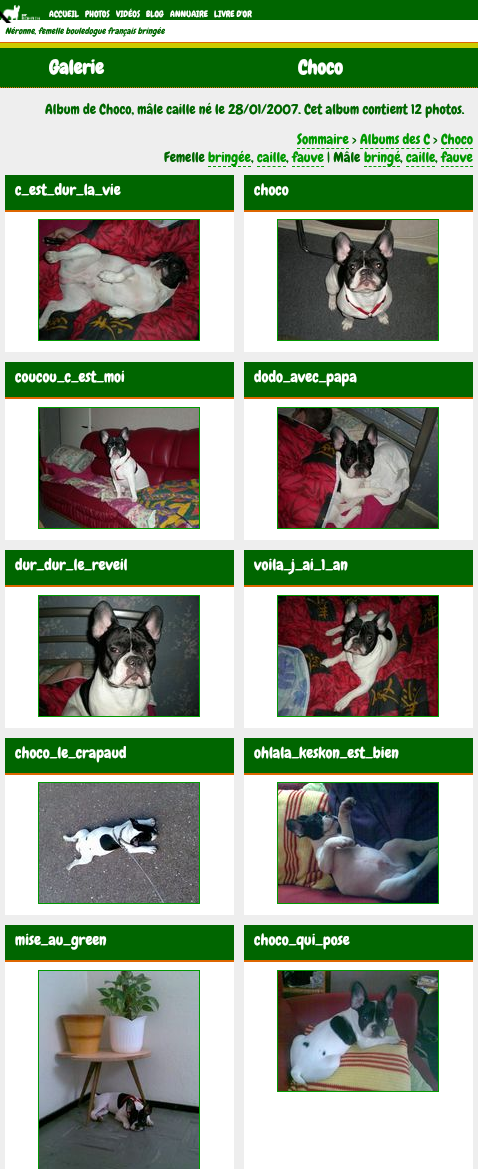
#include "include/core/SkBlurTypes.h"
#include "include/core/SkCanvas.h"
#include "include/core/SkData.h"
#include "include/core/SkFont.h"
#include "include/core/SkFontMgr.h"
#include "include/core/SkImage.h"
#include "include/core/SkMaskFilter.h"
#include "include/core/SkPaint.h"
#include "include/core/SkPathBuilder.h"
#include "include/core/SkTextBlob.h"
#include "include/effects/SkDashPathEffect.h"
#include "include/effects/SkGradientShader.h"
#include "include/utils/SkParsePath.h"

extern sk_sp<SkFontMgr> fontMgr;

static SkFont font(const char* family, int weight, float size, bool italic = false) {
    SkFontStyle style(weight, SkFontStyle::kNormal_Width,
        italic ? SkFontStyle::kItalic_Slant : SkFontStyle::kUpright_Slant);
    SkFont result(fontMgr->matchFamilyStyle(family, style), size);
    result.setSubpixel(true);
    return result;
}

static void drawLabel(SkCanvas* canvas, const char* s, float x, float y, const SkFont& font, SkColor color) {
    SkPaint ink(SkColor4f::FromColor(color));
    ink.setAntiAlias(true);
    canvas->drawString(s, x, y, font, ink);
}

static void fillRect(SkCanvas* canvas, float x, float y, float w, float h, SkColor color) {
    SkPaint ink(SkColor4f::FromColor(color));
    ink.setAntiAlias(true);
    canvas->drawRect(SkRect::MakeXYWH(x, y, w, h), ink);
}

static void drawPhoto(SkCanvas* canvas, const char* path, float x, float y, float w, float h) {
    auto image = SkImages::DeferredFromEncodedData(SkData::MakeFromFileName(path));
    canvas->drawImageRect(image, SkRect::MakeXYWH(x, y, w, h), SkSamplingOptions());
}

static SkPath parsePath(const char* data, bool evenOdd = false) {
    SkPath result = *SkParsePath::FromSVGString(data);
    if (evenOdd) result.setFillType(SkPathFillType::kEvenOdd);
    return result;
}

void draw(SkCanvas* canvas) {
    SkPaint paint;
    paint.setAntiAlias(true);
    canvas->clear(0xFFCCCC00);
    fillRect(canvas, 0, 20, 478, 22, 0xFFFFFFFF);
    fillRect(canvas, 0, 42, 478, 1, 0xFFDD6600);
    fillRect(canvas, 0, 0, 478, 20, 0xFF006600);
    drawPhoto(canvas, "assets/img1.png", 0, 5, 40, 18);
    SkFont font1 = font("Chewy", 400, 8.8f);
    drawLabel(canvas, "ACCUEIL", 49, 17, font1, 0xFFFFFFFF);
    drawLabel(canvas, "PHOTOS", 85, 17, font1, 0xFFFFFFFF);
    drawLabel(canvas, "VIDÉOS", 116, 17, font1, 0xFFFFFFFF);
    drawLabel(canvas, "BLOG", 146, 17, font1, 0xFFFFFFFF);
    drawLabel(canvas, "ANNUAIRE", 170, 17, font1, 0xFFFFFFFF);
    drawLabel(canvas, "LIVRE D'OR", 214, 17, font1, 0xFFFFFFFF);
    SkFont font2 = font("Chewy", 400, 8.8f, true);
    drawLabel(canvas, "Néronne, femelle bouledogue français bringée", 5, 34, font2, 0xFF006600);
    fillRect(canvas, 0, 88, 478, 1081, 0xFFEEEEEE);
    fillRect(canvas, 0, 48, 478, 40, 0xFF006600);
    paint.setStroke(true);
    paint.setStrokeWidth(1);
    paint.setColor(0xFFDD6600);
    paint.setPathEffect(SkDashPathEffect::Make({{1, 1}}, 0));
    canvas->drawPath(parsePath("M0 87.5H478"), paint);
    paint.setPathEffect(nullptr);
    SkFont font3 = font("Chewy", 700, 19.5f);
    drawLabel(canvas, "Galerie", 49, 74, font3, 0xFFFFFFFF);
    drawLabel(canvas, "Choco", 298, 74, font3, 0xFFFFFFFF);
    SkFont font4 = font("Chewy", 400, 14);
    drawLabel(canvas, "Album de Choco, mâle caille né le 28/01/2007. Cet album contient 12 photos.", 45, 114, font4, 0xFF006600);
    drawLabel(canvas, "Sommaire", 297, 144, font4, 0xFF009900);
    paint.setColor(0xFF009900);
    paint.setPathEffect(SkDashPathEffect::Make({{3, 1.9f}}, 0));
    canvas->drawPath(parsePath("M297 148.5H349"), paint);
    paint.setPathEffect(nullptr);
    drawLabel(canvas, ">", 352, 144, font4, 0xFF006600);
    drawLabel(canvas, "Albums des C", 360, 144, font4, 0xFF009900);
    paint.setPathEffect(SkDashPathEffect::Make({{3, 2.15f}}, 0));
    canvas->drawPath(parsePath("M360 148.5H430"), paint);
    paint.setPathEffect(nullptr);
    drawLabel(canvas, ">", 433, 144, font4, 0xFF006600);
    drawLabel(canvas, "Choco", 441, 144, font4, 0xFF009900);
    paint.setPathEffect(SkDashPathEffect::Make({{3, 1.83f}}, 0));
    canvas->drawPath(parsePath("M441 148.5H473"), paint);
    paint.setPathEffect(nullptr);
    drawLabel(canvas, "Femelle", 164, 162, font4, 0xFF006600);
    paint.setPathEffect(SkDashPathEffect::Make({{3, 2}}, 0));
    canvas->drawPath(parsePath("M208 166.5H251"), paint);
    paint.setPathEffect(nullptr);
    drawLabel(canvas, "bringée", 208, 162, font4, 0xFF009900);
    drawLabel(canvas, ",", 251, 162, font4, 0xFF006600);
    drawLabel(canvas, "caille", 257, 162, font4, 0xFF009900);
    paint.setPathEffect(SkDashPathEffect::Make({{3, 2.2f}}, 0));
    canvas->drawPath(parsePath("M257 166.5H286"), paint);
    paint.setPathEffect(nullptr);
    drawLabel(canvas, ",", 286, 162, font4, 0xFF006600);
    drawLabel(canvas, "fauve", 292, 162, font4, 0xFF009900);
    paint.setPathEffect(SkDashPathEffect::Make({{3, 1.83f}}, 0));
    canvas->drawPath(parsePath("M292 166.5H324"), paint);
    paint.setPathEffect(nullptr);
    drawLabel(canvas, "| Mâle", 327, 162, font4, 0xFF006600);
    paint.setPathEffect(SkDashPathEffect::Make({{3, 1.71f}}, 0));
    canvas->drawPath(parsePath("M364 166.5H400"), paint);
    paint.setPathEffect(nullptr);
    drawLabel(canvas, "bringé", 364, 162, font4, 0xFF009900);
    drawLabel(canvas, ",", 400, 162, font4, 0xFF006600);
    drawLabel(canvas, "caille", 406, 162, font4, 0xFF009900);
    paint.setPathEffect(SkDashPathEffect::Make({{3, 2.2f}}, 0));
    canvas->drawPath(parsePath("M406 166.5H435"), paint);
    paint.setPathEffect(nullptr);
    drawLabel(canvas, ",", 435, 162, font4, 0xFF006600);
    drawLabel(canvas, "fauve", 441, 162, font4, 0xFF009900);
    paint.setPathEffect(SkDashPathEffect::Make({{3, 1.83f}}, 0));
    canvas->drawPath(parsePath("M441 166.5H473"), paint);
    paint.setPathEffect(nullptr);
    fillRect(canvas, 5, 212, 229, 140, 0xFFFFFFFF);
    fillRect(canvas, 5, 175, 229, 35, 0xFF006600);
    fillRect(canvas, 5, 210, 229, 2, 0xFFDD6600);
    SkFont font5 = font("Chewy", 400, 15.5f);
    drawLabel(canvas, "c_est_dur_la_vie", 15, 195, font5, 0xFFFFFFFF);
    canvas->drawRect(SkRect::MakeXYWH(38.5f, 219.5f, 161, 121), paint);
    drawPhoto(canvas, "assets/img2.png", 39, 220, 160, 120);
    fillRect(canvas, 244, 212, 229, 140, 0xFFFFFFFF);
    fillRect(canvas, 244, 175, 229, 35, 0xFF006600);
    fillRect(canvas, 244, 210, 229, 2, 0xFFDD6600);
    drawLabel(canvas, "choco", 254, 195, font5, 0xFFFFFFFF);
    canvas->drawRect(SkRect::MakeXYWH(277.5f, 219.5f, 161, 121), paint);
    drawPhoto(canvas, "assets/img3.png", 278, 220, 160, 120);
    fillRect(canvas, 5, 399, 229, 141, 0xFFFFFFFF);
    fillRect(canvas, 5, 362, 229, 35, 0xFF006600);
    fillRect(canvas, 5, 397, 229, 2, 0xFFDD6600);
    drawLabel(canvas, "coucou_c_est_moi", 15, 382, font5, 0xFFFFFFFF);
    canvas->drawRect(SkRect::MakeXYWH(38.5f, 407.5f, 161, 121), paint);
    drawPhoto(canvas, "assets/img4.png", 39, 408, 160, 120);
    fillRect(canvas, 244, 399, 229, 141, 0xFFFFFFFF);
    fillRect(canvas, 244, 362, 229, 35, 0xFF006600);
    fillRect(canvas, 244, 397, 229, 2, 0xFFDD6600);
    drawLabel(canvas, "dodo_avec_papa", 254, 382, font5, 0xFFFFFFFF);
    canvas->drawRect(SkRect::MakeXYWH(277.5f, 407.5f, 161, 121), paint);
    drawPhoto(canvas, "assets/img5.png", 278, 408, 160, 120);
    fillRect(canvas, 5, 587, 229, 141, 0xFFFFFFFF);
    fillRect(canvas, 5, 550, 229, 35, 0xFF006600);
    fillRect(canvas, 5, 585, 229, 2, 0xFFDD6600);
    drawLabel(canvas, "dur_dur_le_reveil", 15, 570, font5, 0xFFFFFFFF);
    canvas->drawRect(SkRect::MakeXYWH(38.5f, 595.5f, 161, 121), paint);
    drawPhoto(canvas, "assets/img6.png", 39, 596, 160, 120);
    fillRect(canvas, 244, 587, 229, 141, 0xFFFFFFFF);
    fillRect(canvas, 244, 550, 229, 35, 0xFF006600);
    fillRect(canvas, 244, 585, 229, 2, 0xFFDD6600);
    drawLabel(canvas, "voila_j_ai_1_an", 254, 570, font5, 0xFFFFFFFF);
    canvas->drawRect(SkRect::MakeXYWH(277.5f, 595.5f, 161, 121), paint);
    drawPhoto(canvas, "assets/img7.png", 278, 596, 160, 120);
    fillRect(canvas, 5, 775, 229, 140, 0xFFFFFFFF);
    fillRect(canvas, 5, 738, 229, 35, 0xFF006600);
    fillRect(canvas, 5, 773, 229, 2, 0xFFDD6600);
    drawLabel(canvas, "choco_le_crapaud", 15, 758, font5, 0xFFFFFFFF);
    canvas->drawRect(SkRect::MakeXYWH(38.5f, 782.5f, 161, 121), paint);
    drawPhoto(canvas, "assets/img8.png", 39, 783, 160, 120);
    fillRect(canvas, 244, 775, 229, 140, 0xFFFFFFFF);
    fillRect(canvas, 244, 738, 229, 35, 0xFF006600);
    fillRect(canvas, 244, 773, 229, 2, 0xFFDD6600);
    drawLabel(canvas, "ohlala_keskon_est_bien", 254, 758, font5, 0xFFFFFFFF);
    canvas->drawRect(SkRect::MakeXYWH(277.5f, 782.5f, 161, 121), paint);
    drawPhoto(canvas, "assets/img9.png", 278, 783, 160, 120);
    fillRect(canvas, 5, 962, 229, 207, 0xFFFFFFFF);
    fillRect(canvas, 5, 925, 229, 35, 0xFF006600);
    fillRect(canvas, 5, 960, 229, 2, 0xFFDD6600);
    drawLabel(canvas, "mise_au_green", 15, 945, font5, 0xFFFFFFFF);
    canvas->drawRect(SkRect::MakeXYWH(38.5f, 970.5f, 161, 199), paint);
    drawPhoto(canvas, "assets/img10.png", 39, 971, 160, 198);
    fillRect(canvas, 244, 962, 229, 207, 0xFFFFFFFF);
    fillRect(canvas, 244, 925, 229, 35, 0xFF006600);
    fillRect(canvas, 244, 960, 229, 2, 0xFFDD6600);
    drawLabel(canvas, "choco_qui_pose", 254, 945, font5, 0xFFFFFFFF);
    canvas->drawRect(SkRect::MakeXYWH(277.5f, 970.5f, 161, 121), paint);
    drawPhoto(canvas, "assets/img11.png", 278, 971, 160, 120);
}
